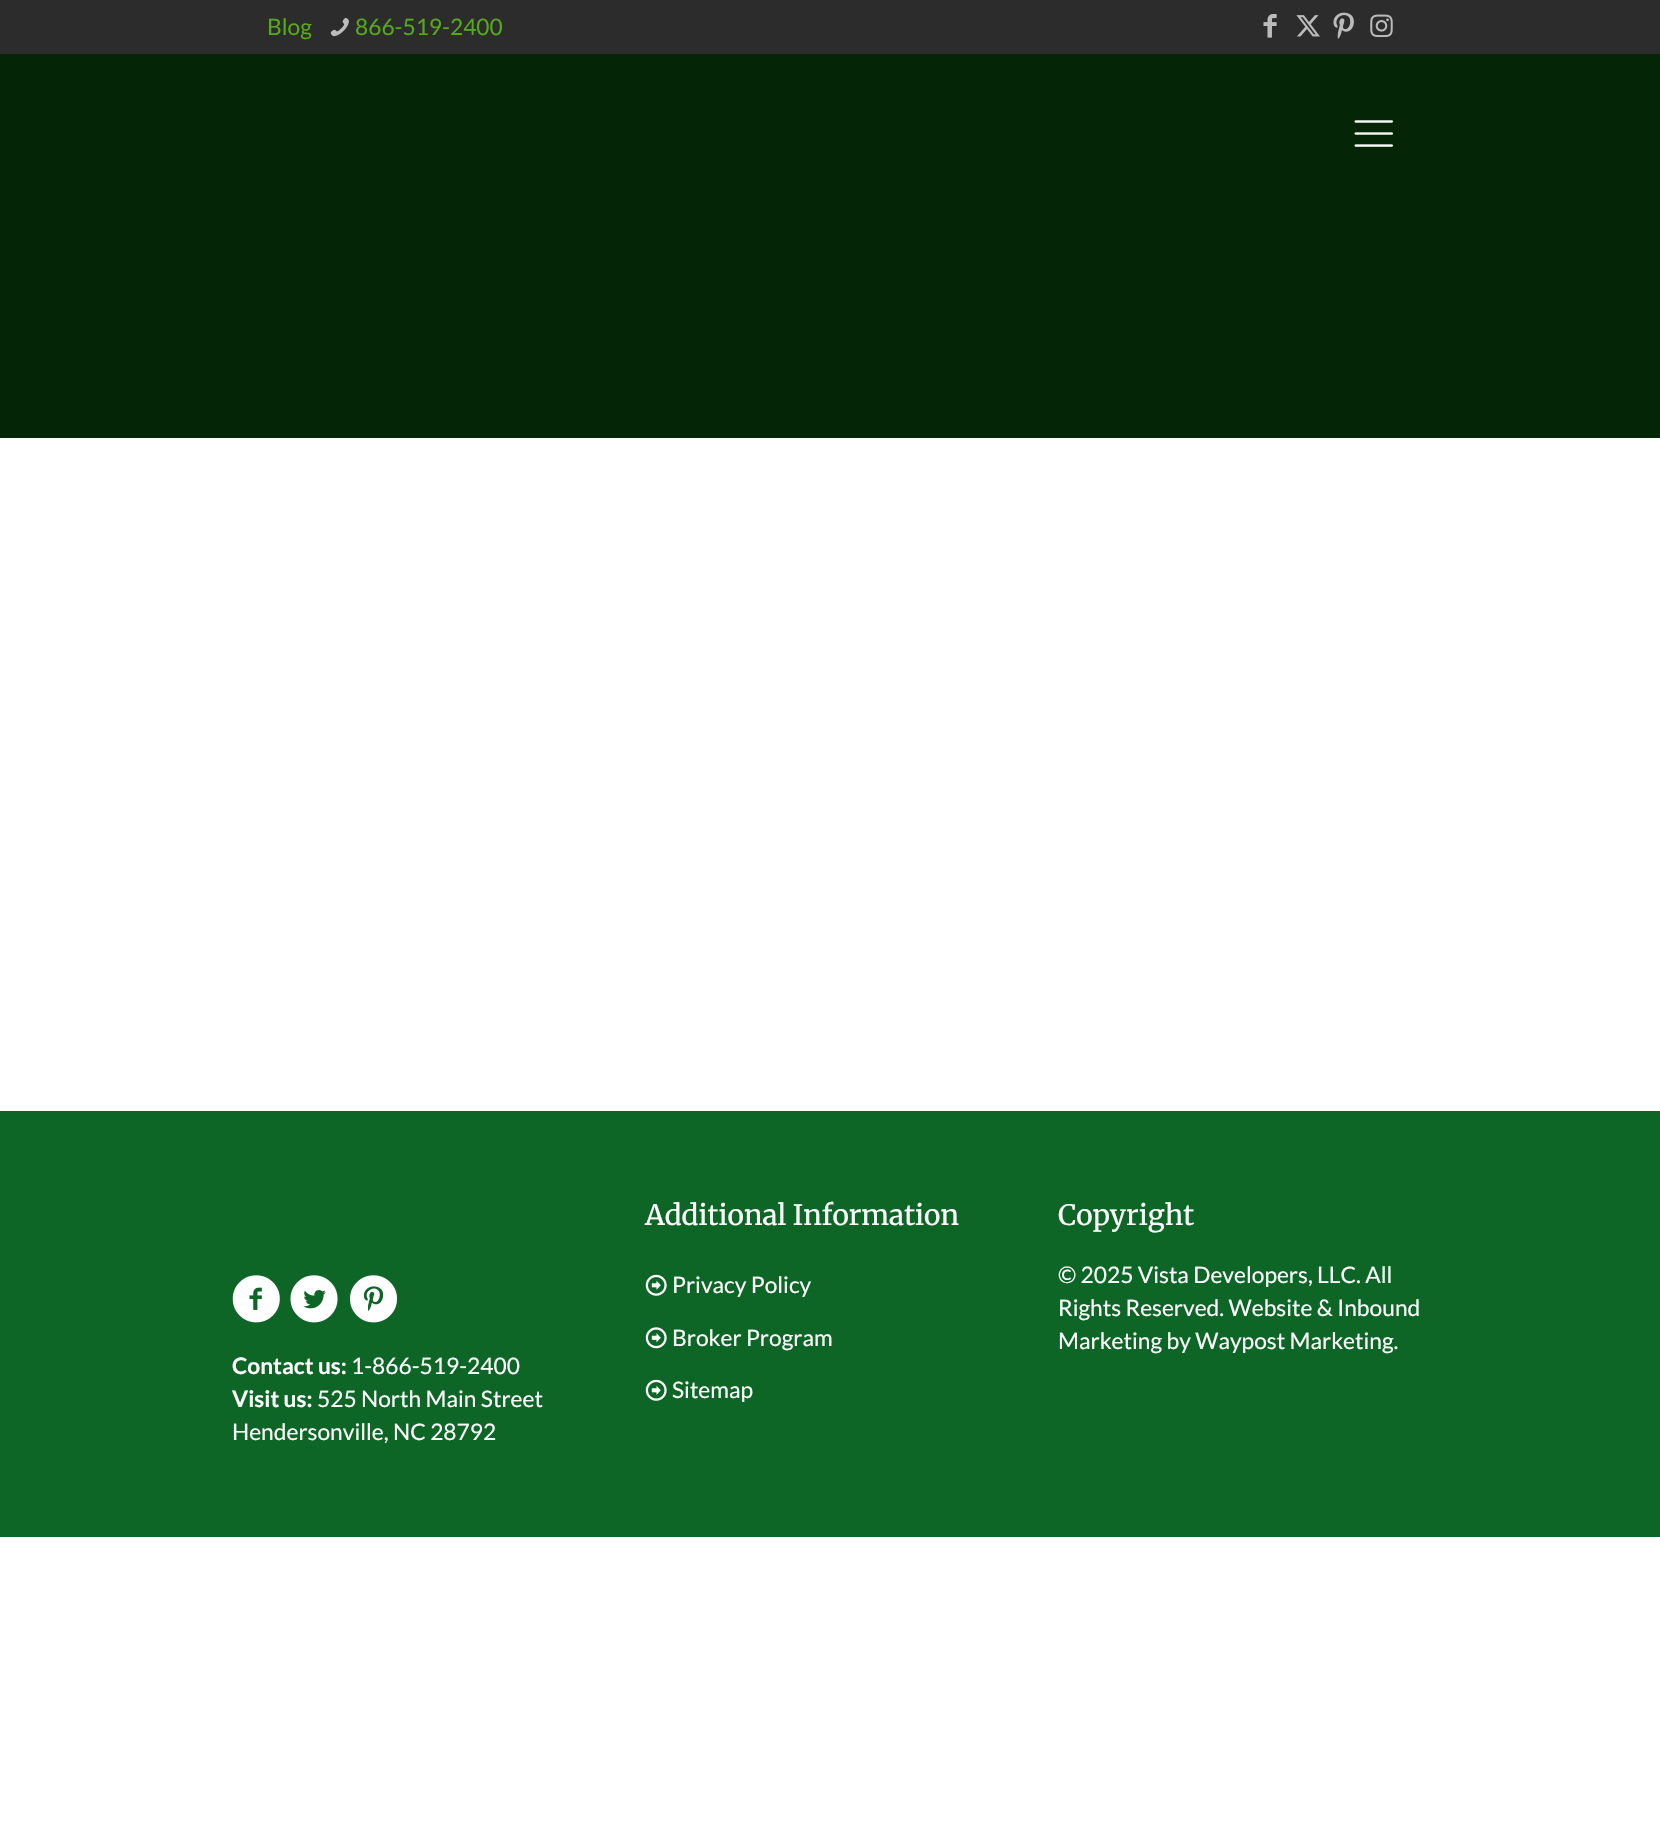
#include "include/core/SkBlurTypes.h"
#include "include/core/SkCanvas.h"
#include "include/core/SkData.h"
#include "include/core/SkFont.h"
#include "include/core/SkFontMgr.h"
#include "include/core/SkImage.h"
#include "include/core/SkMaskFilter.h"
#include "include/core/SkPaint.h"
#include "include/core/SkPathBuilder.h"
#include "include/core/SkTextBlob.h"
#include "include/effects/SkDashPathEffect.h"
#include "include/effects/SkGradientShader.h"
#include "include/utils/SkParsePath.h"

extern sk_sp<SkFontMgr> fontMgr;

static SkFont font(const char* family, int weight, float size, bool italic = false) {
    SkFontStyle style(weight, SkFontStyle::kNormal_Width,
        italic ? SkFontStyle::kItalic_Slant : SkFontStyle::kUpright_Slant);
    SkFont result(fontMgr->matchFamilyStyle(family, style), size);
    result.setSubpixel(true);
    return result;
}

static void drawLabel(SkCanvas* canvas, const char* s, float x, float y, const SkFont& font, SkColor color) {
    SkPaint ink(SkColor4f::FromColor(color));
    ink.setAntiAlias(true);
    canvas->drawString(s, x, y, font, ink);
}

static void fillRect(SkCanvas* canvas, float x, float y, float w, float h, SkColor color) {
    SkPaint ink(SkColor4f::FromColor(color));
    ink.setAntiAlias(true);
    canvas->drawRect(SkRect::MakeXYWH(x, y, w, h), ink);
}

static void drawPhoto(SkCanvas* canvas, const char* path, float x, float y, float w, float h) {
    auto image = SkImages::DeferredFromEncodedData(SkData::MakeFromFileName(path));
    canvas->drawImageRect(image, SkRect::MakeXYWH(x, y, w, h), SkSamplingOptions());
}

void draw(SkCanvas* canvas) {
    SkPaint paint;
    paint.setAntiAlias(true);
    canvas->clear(0xFFFFFFFF);
    fillRect(canvas, 0, 54, 1660, 384, 0xFF052606);
    fillRect(canvas, 0, 0, 1660, 54, 0xFF2C2C2C);
    SkFont font1 = font("Lato", 400, 22.75f);
    drawLabel(canvas, "Blog", 267, 35, font1, 0xFF55A91C);
    drawPhoto(canvas, "assets/img1.png", 330, 17, 19, 20);
    drawLabel(canvas, "866-519-2400", 355, 35, font1, 0xFF55A91C);
    drawPhoto(canvas, "assets/img2.png", 1263, 14, 14, 24);
    drawPhoto(canvas, "assets/img3.png", 1296, 15, 24, 22);
    drawPhoto(canvas, "assets/img4.png", 1333, 12, 21, 27);
    drawPhoto(canvas, "assets/img5.png", 1370, 14, 23, 24);
    drawPhoto(canvas, "assets/img6.png", 1354, 120, 39, 27);
    fillRect(canvas, 0, 1111, 1660, 426, 0xFF0D6526);
    SkFont font2 = font("Merriweather", 400, 28);
    drawLabel(canvas, "Additional Information", 645, 1225, font2, 0xFFFFFFFF);
    drawPhoto(canvas, "assets/img7.png", 645, 1274, 22, 22);
    drawLabel(canvas, "Privacy Policy", 672, 1293, font1, 0xFFFFFFFF);
    drawPhoto(canvas, "assets/img8.png", 645, 1327, 22, 22);
    drawLabel(canvas, "Broker Program", 672, 1346, font1, 0xFFFFFFFF);
    drawPhoto(canvas, "assets/img7.png", 645, 1379, 22, 22);
    drawLabel(canvas, "Sitemap", 672, 1398, font1, 0xFFFFFFFF);
    drawLabel(canvas, "Copyright", 1058, 1225, font2, 0xFFFFFFFF);
    drawLabel(canvas, "© 2025 Vista Developers, LLC. All", 1058, 1283, font1, 0xFFFFFFFF);
    drawLabel(canvas, "Rights Reserved. Website & Inbound", 1058, 1316, font1, 0xFFFFFFFF);
    drawLabel(canvas, "Marketing by Waypost Marketing.", 1058, 1349, font1, 0xFFFFFFFF);
    drawPhoto(canvas, "assets/img9.png", 232, 1275, 48, 48);
    drawPhoto(canvas, "assets/img10.png", 290, 1275, 48, 48);
    drawPhoto(canvas, "assets/img11.png", 350, 1275, 48, 48);
    SkFont font3 = font("Lato", 700, 22.75f);
    drawLabel(canvas, "Contact us:", 232, 1374, font3, 0xFFFFFFFF);
    drawLabel(canvas, "1-866-519-2400", 351, 1374, font1, 0xFFFFFFFF);
    drawLabel(canvas, "Visit us:", 232, 1407, font3, 0xFFFFFFFF);
    drawLabel(canvas, "525 North Main Street", 317, 1407, font1, 0xFFFFFFFF);
    drawLabel(canvas, "Hendersonville, NC 28792", 232, 1440, font1, 0xFFFFFFFF);
}
